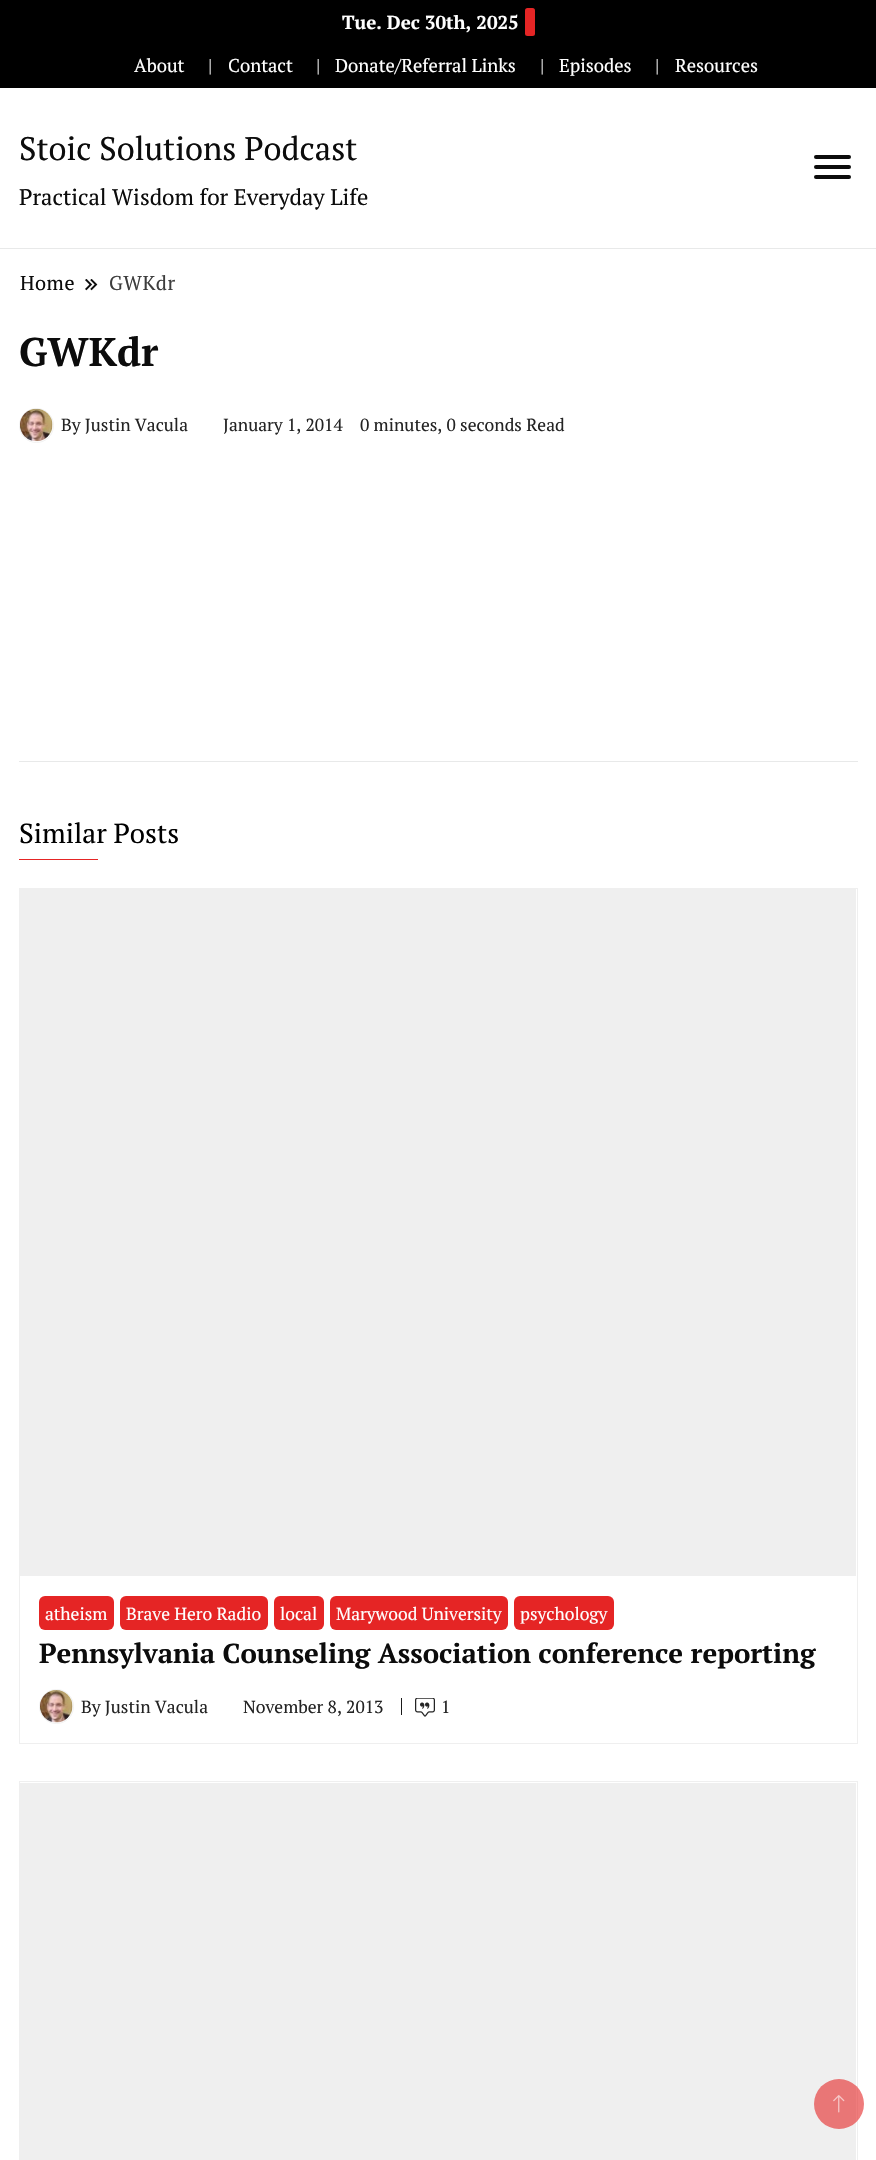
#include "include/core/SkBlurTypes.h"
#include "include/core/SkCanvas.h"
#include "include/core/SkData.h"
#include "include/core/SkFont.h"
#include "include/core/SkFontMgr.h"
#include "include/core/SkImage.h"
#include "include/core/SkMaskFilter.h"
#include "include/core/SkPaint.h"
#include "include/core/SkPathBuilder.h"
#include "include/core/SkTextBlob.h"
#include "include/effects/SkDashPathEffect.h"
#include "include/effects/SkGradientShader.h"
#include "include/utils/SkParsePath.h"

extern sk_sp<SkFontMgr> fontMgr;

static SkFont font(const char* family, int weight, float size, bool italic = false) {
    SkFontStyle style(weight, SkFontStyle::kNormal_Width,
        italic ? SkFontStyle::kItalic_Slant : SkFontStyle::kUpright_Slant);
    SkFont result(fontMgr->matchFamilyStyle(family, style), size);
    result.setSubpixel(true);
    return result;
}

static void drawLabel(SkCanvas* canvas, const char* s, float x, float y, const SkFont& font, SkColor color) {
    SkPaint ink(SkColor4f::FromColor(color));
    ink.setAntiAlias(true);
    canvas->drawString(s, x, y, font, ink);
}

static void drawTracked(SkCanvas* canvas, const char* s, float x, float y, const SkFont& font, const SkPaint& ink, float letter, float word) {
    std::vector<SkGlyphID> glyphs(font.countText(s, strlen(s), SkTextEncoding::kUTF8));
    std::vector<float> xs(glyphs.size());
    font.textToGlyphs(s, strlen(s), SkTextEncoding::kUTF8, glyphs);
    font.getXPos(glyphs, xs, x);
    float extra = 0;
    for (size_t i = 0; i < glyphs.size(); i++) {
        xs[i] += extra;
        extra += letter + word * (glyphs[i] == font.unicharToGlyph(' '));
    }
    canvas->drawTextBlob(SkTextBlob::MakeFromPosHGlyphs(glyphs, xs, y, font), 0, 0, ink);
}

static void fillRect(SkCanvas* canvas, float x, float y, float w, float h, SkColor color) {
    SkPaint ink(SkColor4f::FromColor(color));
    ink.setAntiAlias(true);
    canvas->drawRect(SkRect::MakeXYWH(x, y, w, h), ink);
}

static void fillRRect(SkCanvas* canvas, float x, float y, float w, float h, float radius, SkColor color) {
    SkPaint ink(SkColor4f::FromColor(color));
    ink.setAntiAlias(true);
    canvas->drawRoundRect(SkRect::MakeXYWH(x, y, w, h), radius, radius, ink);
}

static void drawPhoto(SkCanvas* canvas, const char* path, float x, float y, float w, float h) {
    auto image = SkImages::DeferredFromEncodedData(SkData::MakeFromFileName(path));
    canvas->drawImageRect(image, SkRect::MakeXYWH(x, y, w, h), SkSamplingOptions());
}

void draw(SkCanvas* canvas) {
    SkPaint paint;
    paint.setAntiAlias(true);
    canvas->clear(0xFFFFFFFF);
    fillRect(canvas, 0, 248, 876, 1, 0xFFE8E9E9);
    fillRect(canvas, 0, 0, 876, 88, 0xFF000000);
    SkFont font1 = font("PT Serif", 700, 18.75f);
    drawLabel(canvas, "Tue. Dec 30th, 2025", 342, 29, font1, 0xFFFFFFFF);
    fillRRect(canvas, 525, 8, 10, 28, 2.5f, 0xFFE52525);
    SkFont font2 = font("PT Serif", 400, 18.5f);
    drawLabel(canvas, "About", 134, 72, font2, 0xFFFFFFFF);
    drawLabel(canvas, "|", 208, 72, font2, 0xFFDDDDDD);
    drawLabel(canvas, "Contact", 228, 72, font2, 0xFFFFFFFF);
    drawLabel(canvas, "|", 316, 72, font2, 0xFFDDDDDD);
    drawLabel(canvas, "Donate/Referral Links", 335, 72, font2, 0xFFFFFFFF);
    drawLabel(canvas, "|", 540, 72, font2, 0xFFDDDDDD);
    drawLabel(canvas, "Episodes", 559, 72, font2, 0xFFFFFFFF);
    drawLabel(canvas, "|", 655, 72, font2, 0xFFDDDDDD);
    drawLabel(canvas, "Resources", 675, 72, font2, 0xFFFFFFFF);
    SkFont font3 = font("PT Serif", 400, 32.5f);
    drawLabel(canvas, "Stoic Solutions Podcast", 19, 160, font3, 0xFF0C0C0C);
    SkFont font4 = font("PT Serif", 400, 22.5f);
    drawLabel(canvas, "Practical Wisdom for Everyday Life", 19, 205, font4, 0xFF0C0C0C);
    fillRRect(canvas, 814, 155, 37, 4, 2, 0xFF0C0C0C);
    fillRRect(canvas, 814, 165, 37, 4, 2, 0xFF0C0C0C);
    fillRRect(canvas, 814, 175, 37, 4, 2, 0xFF0C0C0C);
    SkFont font5 = font("PT Serif", 400, 20);
    paint.setColor(0xFF0C0C0C);
    drawTracked(canvas, "Home", 20, 290, font5, paint, 0.5f, 0);
    drawPhoto(canvas, "assets/img1.png", 85, 279, 13, 12);
    paint.setColor(0xFF3D3D3D);
    drawTracked(canvas, "GWKdr", 109, 290, font5, paint, 0.5f, 0);
    SkFont font6 = font("PT Serif", 700, 40);
    drawLabel(canvas, "GWKdr", 19, 366, font6, 0xFF0C0C0C);
    paint.setStroke(true);
    paint.setStrokeWidth(1);
    paint.setColor(0xFFF2F2F2);
    canvas->drawCircle(36.5f, 425.5f, 17, paint);
    drawPhoto(canvas, "assets/img2.png", 20, 408, 33, 34);
    SkFont font7 = font("PT Serif", 400, 17.5f);
    drawLabel(canvas, "By Justin Vacula", 61, 431, font7, 0xFF242424);
    drawLabel(canvas, "January 1, 2014", 223, 431, font7, 0xFF242424);
    drawLabel(canvas, "0 minutes, 0 seconds Read", 360, 431, font7, 0xFF242424);
    fillRect(canvas, 19, 761, 839, 1, 0xFFE8E9E9);
    SkFont font8 = font("PT Serif", 400, 27.5f);
    drawLabel(canvas, "Similar Posts", 19, 843, font8, 0xFF000000);
    fillRect(canvas, 19, 859, 79, 1, 0xFFE52525);
    paint.setColor(0xFFEFEFEF);
    canvas->drawRect(SkRect::MakeXYWH(19.5f, 888.5f, 838, 855), paint);
    fillRect(canvas, 20, 889, 836, 687, 0xFFEFEFEF);
    fillRRect(canvas, 39, 1596, 75, 34, 6, 0xFFE52525);
    drawLabel(canvas, "atheism", 45, 1620, font7, 0xFFFFFFFF);
    fillRRect(canvas, 120, 1596, 148, 34, 6, 0xFFE52525);
    drawLabel(canvas, "Brave Hero Radio", 126, 1620, font7, 0xFFFFFFFF);
    fillRRect(canvas, 274, 1596, 50, 34, 6, 0xFFE52525);
    drawLabel(canvas, "local", 280, 1620, font7, 0xFFFFFFFF);
    fillRRect(canvas, 330, 1596, 178, 34, 6, 0xFFE52525);
    drawLabel(canvas, "Marywood University", 336, 1620, font7, 0xFFFFFFFF);
    fillRRect(canvas, 514, 1596, 100, 34, 6, 0xFFE52525);
    drawLabel(canvas, "psychology", 520, 1620, font7, 0xFFFFFFFF);
    SkFont font9 = font("PT Serif", 700, 27.5f);
    drawLabel(canvas, "Pennsylvania Counseling Association conference reporting", 39, 1663, font9, 0xFF0C0C0C);
    paint.setColor(0xFFF2F2F2);
    canvas->drawCircle(56.5f, 1706.5f, 17, paint);
    drawPhoto(canvas, "assets/img3.png", 40, 1690, 33, 33);
    drawLabel(canvas, "By Justin Vacula", 81, 1713, font7, 0xFF242424);
    drawLabel(canvas, "November 8, 2013", 243, 1713, font7, 0xFF242424);
    fillRect(canvas, 401, 1698, 1, 17, 0xFF1A1A1A);
    drawPhoto(canvas, "assets/img4.png", 415, 1698, 20, 19);
    drawLabel(canvas, "1", 441, 1713, font7, 0xFF242424);
    paint.setColor(0xFFEFEFEF);
    canvas->drawRect(SkRect::MakeXYWH(19.5f, 1781.5f, 838, 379), paint);
    fillRect(canvas, 20, 1783, 836, 377, 0xFFEFEFEF);
    paint.setStroke(false);
    paint.setColor(0x99E52525);
    canvas->drawCircle(839, 2104, 25, paint);
    drawPhoto(canvas, "assets/img5.png", 833, 2095, 12, 18);
}
